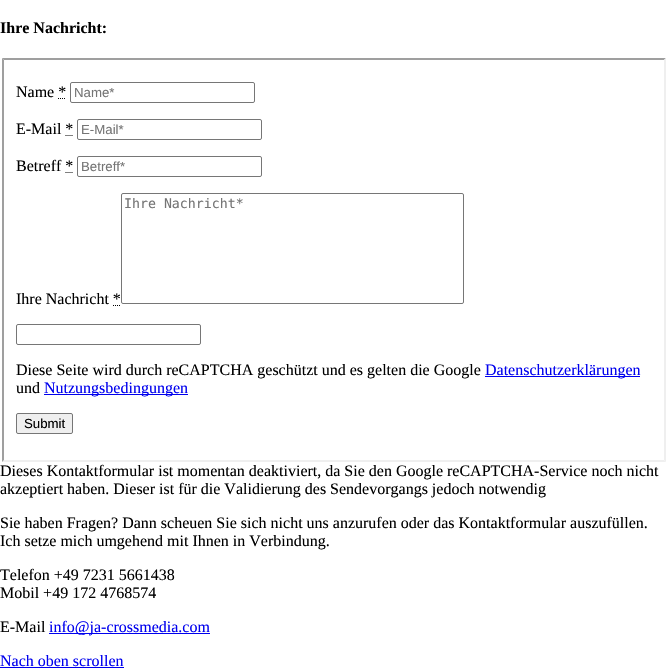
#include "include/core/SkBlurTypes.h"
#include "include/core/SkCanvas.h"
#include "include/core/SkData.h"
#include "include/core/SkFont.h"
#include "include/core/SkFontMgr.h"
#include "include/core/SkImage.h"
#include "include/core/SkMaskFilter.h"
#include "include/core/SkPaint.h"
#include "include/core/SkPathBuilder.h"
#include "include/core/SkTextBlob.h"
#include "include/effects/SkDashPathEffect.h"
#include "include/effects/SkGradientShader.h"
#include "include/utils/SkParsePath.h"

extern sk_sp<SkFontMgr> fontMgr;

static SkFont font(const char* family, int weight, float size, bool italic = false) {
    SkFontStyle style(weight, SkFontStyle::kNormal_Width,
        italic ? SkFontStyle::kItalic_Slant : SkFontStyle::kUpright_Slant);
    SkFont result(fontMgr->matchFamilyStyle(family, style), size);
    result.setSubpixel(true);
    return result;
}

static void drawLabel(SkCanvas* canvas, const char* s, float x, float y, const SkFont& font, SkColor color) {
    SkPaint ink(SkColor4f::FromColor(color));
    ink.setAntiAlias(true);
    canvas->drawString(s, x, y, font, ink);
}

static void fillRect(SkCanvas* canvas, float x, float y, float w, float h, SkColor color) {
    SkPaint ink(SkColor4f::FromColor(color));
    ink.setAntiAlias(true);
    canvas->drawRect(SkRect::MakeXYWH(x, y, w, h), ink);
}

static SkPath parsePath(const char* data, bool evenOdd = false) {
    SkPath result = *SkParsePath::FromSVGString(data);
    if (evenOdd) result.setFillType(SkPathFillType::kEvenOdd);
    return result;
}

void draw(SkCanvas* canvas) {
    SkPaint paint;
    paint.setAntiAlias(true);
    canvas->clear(0xFFFFFFFF);
    SkFont font1 = font("Liberation Serif", 700, 16);
    drawLabel(canvas, "Ihre Nachricht:", 0, 33, font1, 0xFF000000);
    paint.setColor(0xFF9F9F9F);
    canvas->drawPath(parsePath("M2 58H666L664 60H4Z"), paint);
    paint.setColor(0xFFEFEFEF);
    canvas->drawPath(parsePath("M666 58V462L664 460V60Z"), paint);
    canvas->drawPath(parsePath("M666 462H2L4 460H664Z"), paint);
    paint.setColor(0xFF9F9F9F);
    canvas->drawPath(parsePath("M2 462V58L4 60V460Z"), paint);
    SkFont font2 = font("Liberation Serif", 400, 16);
    drawLabel(canvas, "Name *", 16, 97, font2, 0xFF000000);
    paint.setStroke(true);
    paint.setStrokeWidth(1);
    paint.setColor(0xFF000000);
    paint.setPathEffect(SkDashPathEffect::Make({{1, 1}}, 0));
    canvas->drawPath(parsePath("M58 98.5H66"), paint);
    paint.setPathEffect(nullptr);
    paint.setColor(0xFF767676);
    canvas->drawRoundRect(SkRect::MakeXYWH(70.5f, 82.5f, 184, 20), 1.5f, 1.5f, paint);
    SkFont font3 = font("Liberation Sans", 400, 13.25f);
    drawLabel(canvas, "Name*", 74, 97, font3, 0xFF757575);
    drawLabel(canvas, "E-Mail *", 16, 134, font2, 0xFF000000);
    paint.setColor(0xFF000000);
    paint.setPathEffect(SkDashPathEffect::Make({{1, 1}}, 0));
    canvas->drawPath(parsePath("M65.5 135.5H73.5"), paint);
    paint.setPathEffect(nullptr);
    paint.setColor(0xFF767676);
    canvas->drawRoundRect(SkRect::MakeXYWH(77.5f, 119.5f, 184, 20), 1.5f, 1.5f, paint);
    drawLabel(canvas, "E-Mail*", 81, 134, font3, 0xFF757575);
    drawLabel(canvas, "Betreff *", 16, 171, font2, 0xFF000000);
    paint.setColor(0xFF000000);
    paint.setPathEffect(SkDashPathEffect::Make({{1, 1}}, 0));
    canvas->drawPath(parsePath("M65.5 172.5H73.5"), paint);
    paint.setPathEffect(nullptr);
    paint.setColor(0xFF767676);
    canvas->drawRoundRect(SkRect::MakeXYWH(77.5f, 156.5f, 184, 20), 1.5f, 1.5f, paint);
    drawLabel(canvas, "Betreff*", 81, 171, font3, 0xFF757575);
    canvas->drawRoundRect(SkRect::MakeXYWH(121.5f, 193.5f, 342, 110), 1.5f, 1.5f, paint);
    SkFont font4 = font("DejaVu Sans Mono", 400, 13.25f);
    drawLabel(canvas, "Ihre Nachricht*", 124, 208, font4, 0xFF757575);
    drawLabel(canvas, "Ihre Nachricht *", 16, 304, font2, 0xFF000000);
    paint.setColor(0xFF000000);
    paint.setPathEffect(SkDashPathEffect::Make({{1, 1}}, 0));
    canvas->drawPath(parsePath("M113 305.5H121"), paint);
    paint.setPathEffect(nullptr);
    paint.setColor(0xFF767676);
    canvas->drawRoundRect(SkRect::MakeXYWH(16.5f, 324.5f, 184, 20), 1.5f, 1.5f, paint);
    drawLabel(canvas, "Diese Seite wird durch reCAPTCHA geschützt und es gelten die Google", 16, 375, font2, 0xFF000000);
    fillRect(canvas, 485, 376, 155, 1, 0xFF0000EE);
    drawLabel(canvas, "Datenschutzerklärungen", 485, 375, font2, 0xFF0000EE);
    drawLabel(canvas, "und", 16, 393, font2, 0xFF000000);
    fillRect(canvas, 44, 394, 144, 1, 0xFF0000EE);
    drawLabel(canvas, "Nutzungsbedingungen", 44, 393, font2, 0xFF0000EE);
    paint.setStroke(false);
    paint.setColor(0xFFEFEFEF);
    canvas->drawRoundRect(SkRect::MakeXYWH(16.5f, 413.5f, 56, 20), 1.5f, 1.5f, paint);
    paint.setStroke(true);
    paint.setColor(0xFF767676);
    canvas->drawRoundRect(SkRect::MakeXYWH(16.5f, 413.5f, 56, 20), 1.5f, 1.5f, paint);
    drawLabel(canvas, "Submit", 24, 428, font3, 0xFF000000);
    drawLabel(canvas, "Dieses Kontaktformular ist momentan deaktiviert, da Sie den Google reCAPTCHA-Service noch nicht", 0, 476, font2, 0xFF000000);
    drawLabel(canvas, "akzeptiert haben. Dieser ist für die Validierung des Sendevorgangs jedoch notwendig", 0, 494, font2, 0xFF000000);
    drawLabel(canvas, "Sie haben Fragen? Dann scheuen Sie sich nicht uns anzurufen oder das Kontaktformular auszufüllen.", 0, 528, font2, 0xFF000000);
    drawLabel(canvas, "Ich setze mich umgehend mit Ihnen in Verbindung.", 0, 546, font2, 0xFF000000);
    drawLabel(canvas, "Telefon +49 7231 5661438", 0, 580, font2, 0xFF000000);
    drawLabel(canvas, "Mobil +49 172 4768574", 0, 598, font2, 0xFF000000);
    drawLabel(canvas, "E-Mail", 0, 632, font2, 0xFF000000);
    fillRect(canvas, 49, 633, 161, 1, 0xFF0000EE);
    drawLabel(canvas, "info@ja-crossmedia.com", 49, 632, font2, 0xFF0000EE);
    drawLabel(canvas, "Nach oben scrollen", 0, 666, font2, 0xFF0000EE);
    fillRect(canvas, 0, 667, 124, 1, 0xFF0000EE);
}
